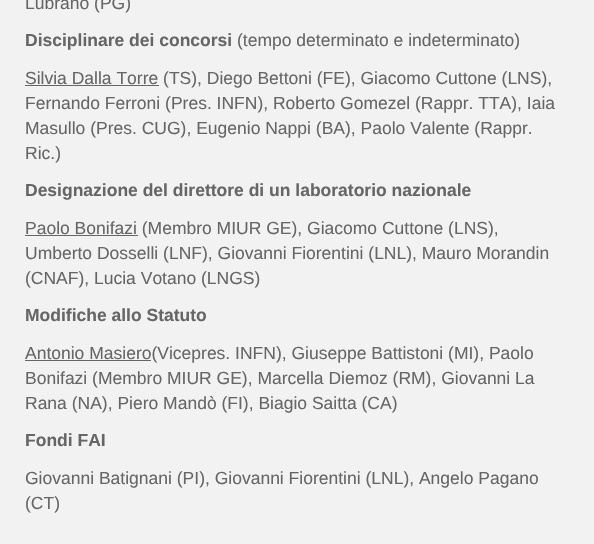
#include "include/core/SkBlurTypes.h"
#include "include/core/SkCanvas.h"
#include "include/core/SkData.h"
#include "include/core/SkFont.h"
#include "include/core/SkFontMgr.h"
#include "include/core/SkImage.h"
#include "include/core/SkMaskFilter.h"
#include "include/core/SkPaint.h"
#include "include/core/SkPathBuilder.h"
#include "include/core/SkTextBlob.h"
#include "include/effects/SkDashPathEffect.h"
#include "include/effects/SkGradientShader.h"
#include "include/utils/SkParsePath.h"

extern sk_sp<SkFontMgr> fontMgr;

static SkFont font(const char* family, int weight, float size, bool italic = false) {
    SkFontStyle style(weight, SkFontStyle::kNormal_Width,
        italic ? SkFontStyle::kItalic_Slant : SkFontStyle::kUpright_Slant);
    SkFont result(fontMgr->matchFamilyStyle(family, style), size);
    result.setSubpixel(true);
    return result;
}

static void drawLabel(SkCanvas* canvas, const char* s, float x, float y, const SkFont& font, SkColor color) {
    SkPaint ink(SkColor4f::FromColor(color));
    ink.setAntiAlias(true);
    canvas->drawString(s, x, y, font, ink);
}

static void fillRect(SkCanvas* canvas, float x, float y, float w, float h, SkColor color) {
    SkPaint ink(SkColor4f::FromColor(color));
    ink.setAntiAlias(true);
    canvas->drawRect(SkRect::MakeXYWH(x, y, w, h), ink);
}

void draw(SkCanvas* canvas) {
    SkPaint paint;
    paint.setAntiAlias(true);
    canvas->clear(0xFFF2F2F2);
    SkFont font1 = font("Liberation Sans", 400, 17.5f);
    drawLabel(canvas, "Lubrano (PG)", 25, 9, font1, 0xFF666666);
    SkFont font2 = font("Liberation Sans", 700, 17.5f);
    drawLabel(canvas, "Disciplinare dei concorsi", 25, 46, font2, 0xFF666666);
    drawLabel(canvas, "(tempo determinato e indeterminato)", 237, 46, font1, 0xFF666666);
    fillRect(canvas, 25, 85, 134, 1, 0xFF666666);
    drawLabel(canvas, "Silvia Dalla Torre (TS), Diego Bettoni (FE), Giacomo Cuttone (LNS),", 25, 84, font1, 0xFF666666);
    drawLabel(canvas, "Fernando Ferroni (Pres. INFN), Roberto Gomezel (Rappr. TTA), Iaia", 25, 109, font1, 0xFF666666);
    drawLabel(canvas, "Masullo (Pres. CUG), Eugenio Nappi (BA), Paolo Valente (Rappr.", 25, 134, font1, 0xFF666666);
    drawLabel(canvas, "Ric.)", 25, 159, font1, 0xFF666666);
    drawLabel(canvas, "Designazione del direttore di un laboratorio nazionale", 25, 196, font2, 0xFF666666);
    fillRect(canvas, 25, 235, 113, 1, 0xFF666666);
    drawLabel(canvas, "Paolo Bonifazi (Membro MIUR GE), Giacomo Cuttone (LNS),", 25, 234, font1, 0xFF666666);
    drawLabel(canvas, "Umberto Dosselli (LNF), Giovanni Fiorentini (LNL), Mauro Morandin", 25, 259, font1, 0xFF666666);
    drawLabel(canvas, "(CNAF), Lucia Votano (LNGS)", 25, 284, font1, 0xFF666666);
    drawLabel(canvas, "Modifiche allo Statuto", 25, 321, font2, 0xFF666666);
    fillRect(canvas, 25, 360, 126, 1, 0xFF666666);
    drawLabel(canvas, "Antonio Masiero(Vicepres. INFN), Giuseppe Battistoni (MI), Paolo", 25, 359, font1, 0xFF666666);
    drawLabel(canvas, "Bonifazi (Membro MIUR GE), Marcella Diemoz (RM), Giovanni La", 25, 384, font1, 0xFF666666);
    drawLabel(canvas, "Rana (NA), Piero Mandò (FI), Biagio Saitta (CA)", 25, 409, font1, 0xFF666666);
    drawLabel(canvas, "Fondi FAI", 25, 446, font2, 0xFF666666);
    drawLabel(canvas, "Giovanni Batignani (PI), Giovanni Fiorentini (LNL), Angelo Pagano", 25, 484, font1, 0xFF666666);
    drawLabel(canvas, "(CT)", 25, 509, font1, 0xFF666666);
}
